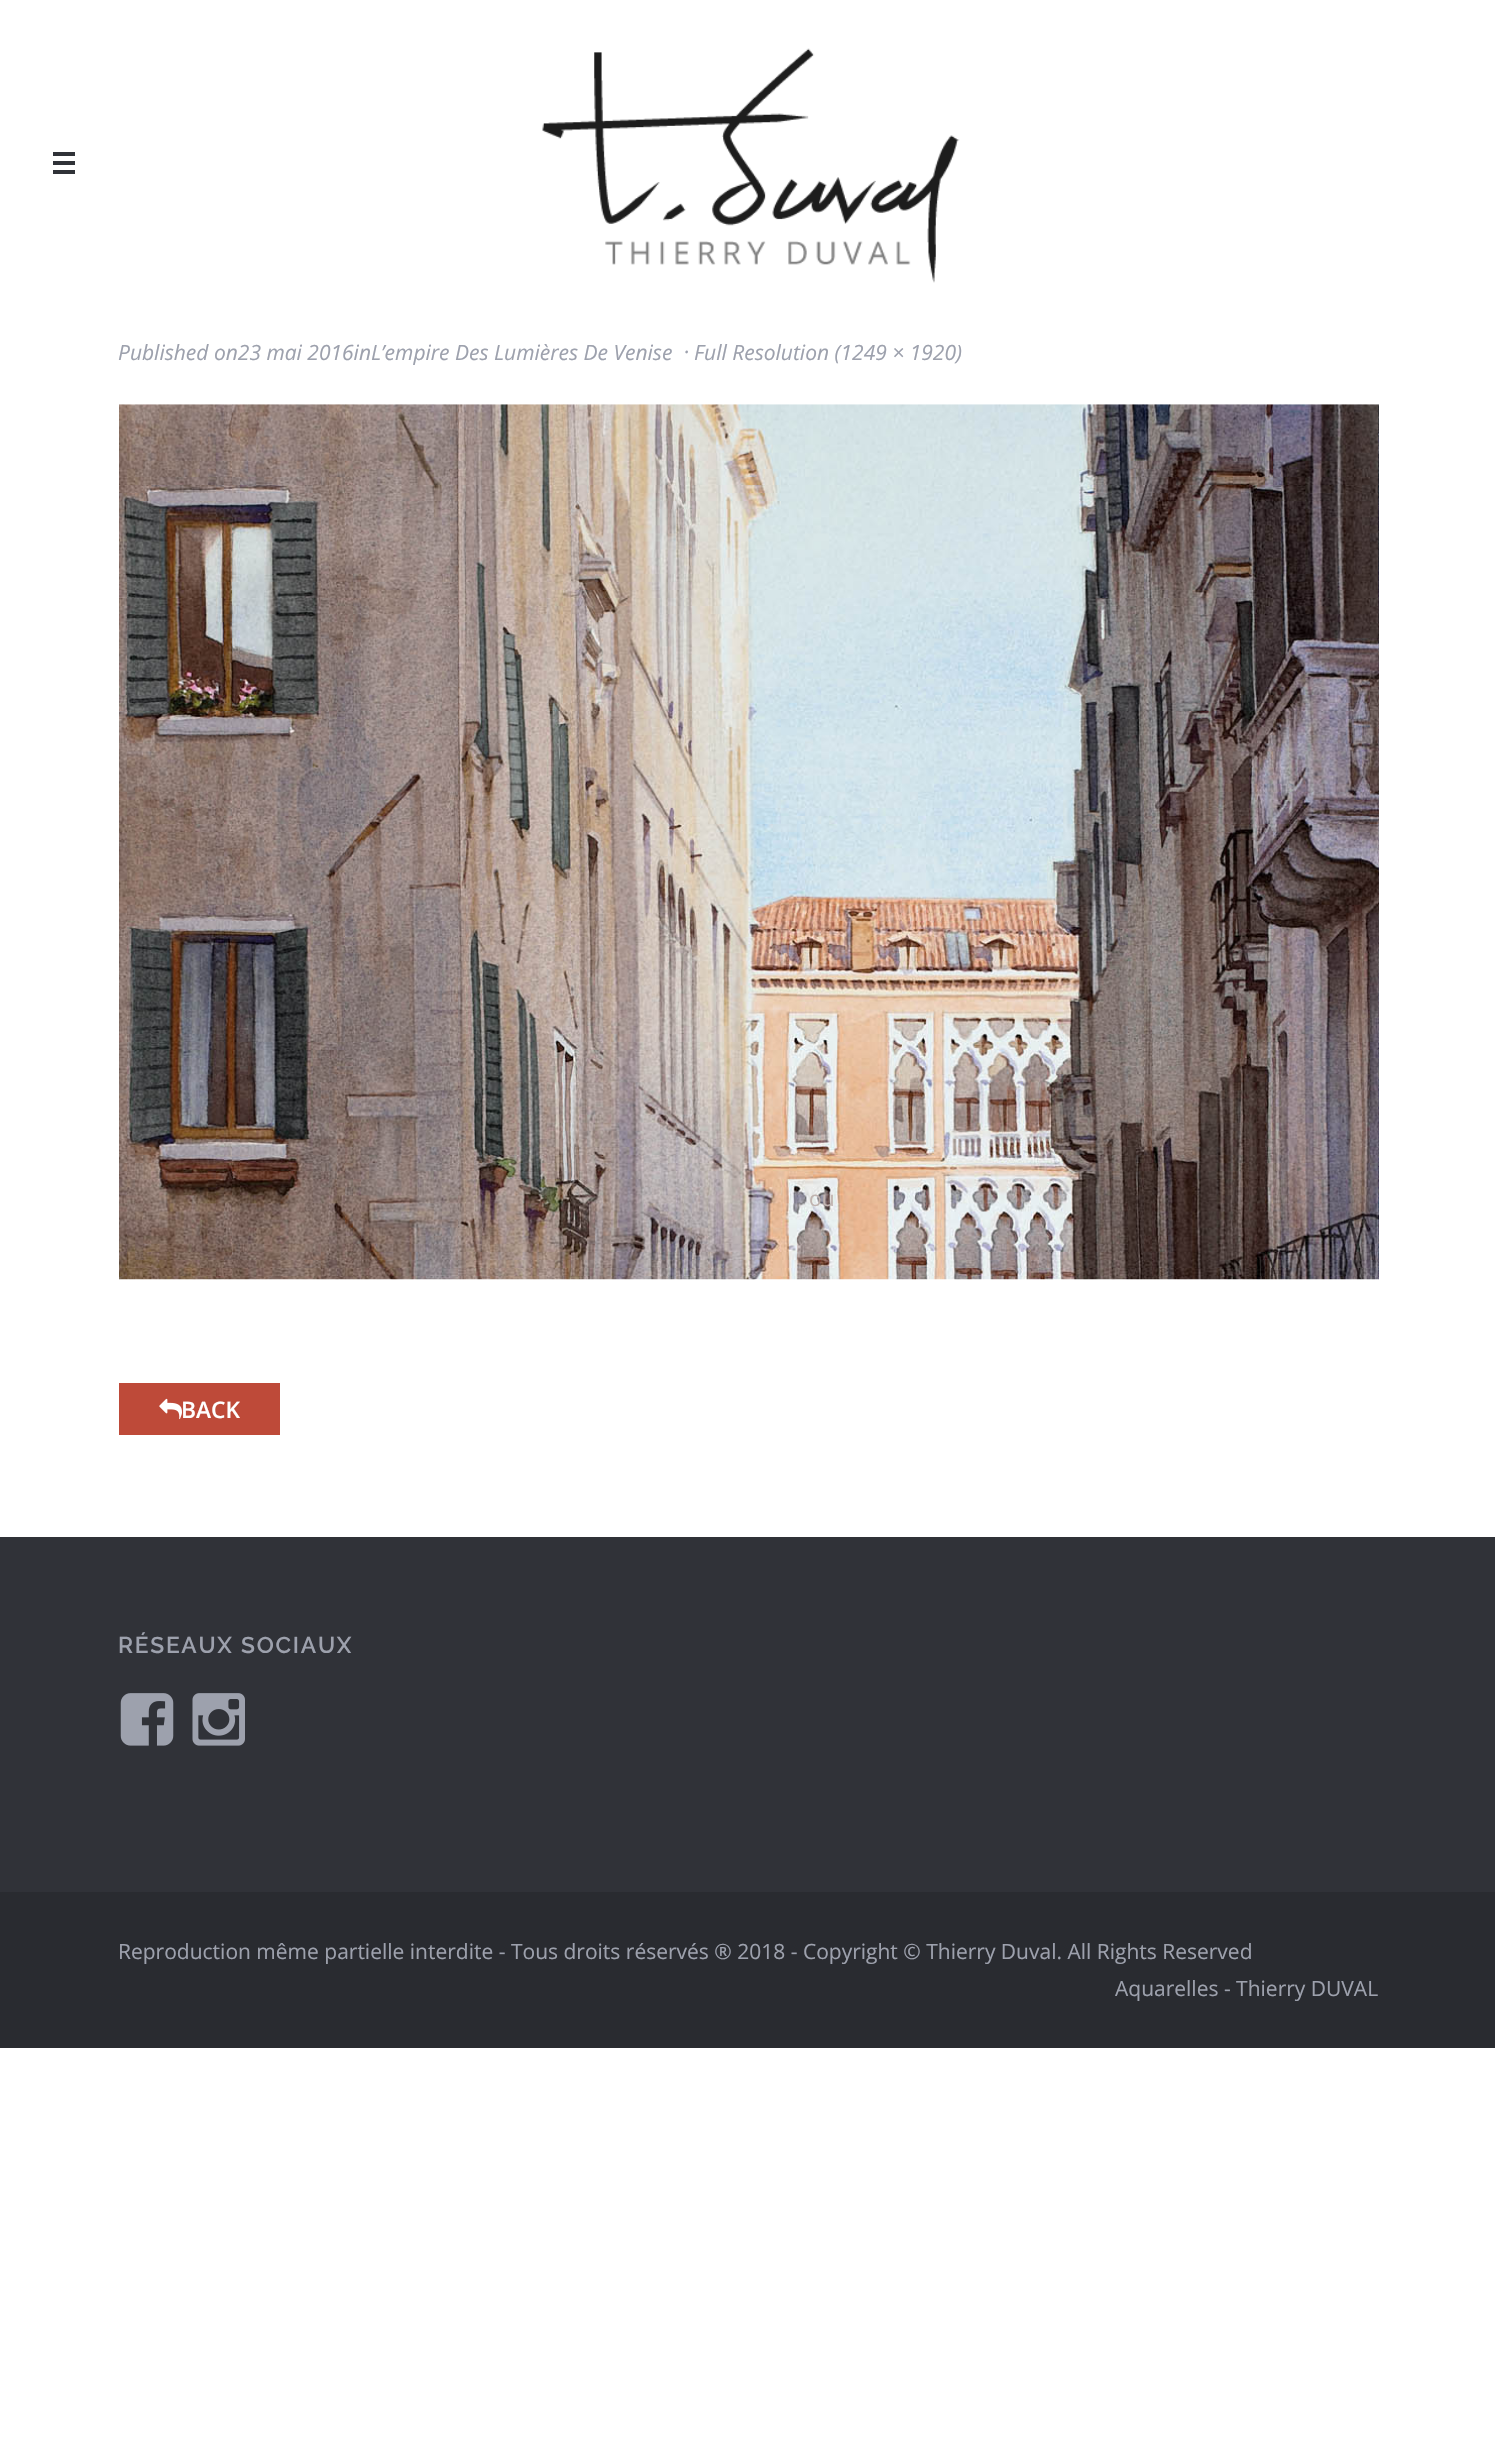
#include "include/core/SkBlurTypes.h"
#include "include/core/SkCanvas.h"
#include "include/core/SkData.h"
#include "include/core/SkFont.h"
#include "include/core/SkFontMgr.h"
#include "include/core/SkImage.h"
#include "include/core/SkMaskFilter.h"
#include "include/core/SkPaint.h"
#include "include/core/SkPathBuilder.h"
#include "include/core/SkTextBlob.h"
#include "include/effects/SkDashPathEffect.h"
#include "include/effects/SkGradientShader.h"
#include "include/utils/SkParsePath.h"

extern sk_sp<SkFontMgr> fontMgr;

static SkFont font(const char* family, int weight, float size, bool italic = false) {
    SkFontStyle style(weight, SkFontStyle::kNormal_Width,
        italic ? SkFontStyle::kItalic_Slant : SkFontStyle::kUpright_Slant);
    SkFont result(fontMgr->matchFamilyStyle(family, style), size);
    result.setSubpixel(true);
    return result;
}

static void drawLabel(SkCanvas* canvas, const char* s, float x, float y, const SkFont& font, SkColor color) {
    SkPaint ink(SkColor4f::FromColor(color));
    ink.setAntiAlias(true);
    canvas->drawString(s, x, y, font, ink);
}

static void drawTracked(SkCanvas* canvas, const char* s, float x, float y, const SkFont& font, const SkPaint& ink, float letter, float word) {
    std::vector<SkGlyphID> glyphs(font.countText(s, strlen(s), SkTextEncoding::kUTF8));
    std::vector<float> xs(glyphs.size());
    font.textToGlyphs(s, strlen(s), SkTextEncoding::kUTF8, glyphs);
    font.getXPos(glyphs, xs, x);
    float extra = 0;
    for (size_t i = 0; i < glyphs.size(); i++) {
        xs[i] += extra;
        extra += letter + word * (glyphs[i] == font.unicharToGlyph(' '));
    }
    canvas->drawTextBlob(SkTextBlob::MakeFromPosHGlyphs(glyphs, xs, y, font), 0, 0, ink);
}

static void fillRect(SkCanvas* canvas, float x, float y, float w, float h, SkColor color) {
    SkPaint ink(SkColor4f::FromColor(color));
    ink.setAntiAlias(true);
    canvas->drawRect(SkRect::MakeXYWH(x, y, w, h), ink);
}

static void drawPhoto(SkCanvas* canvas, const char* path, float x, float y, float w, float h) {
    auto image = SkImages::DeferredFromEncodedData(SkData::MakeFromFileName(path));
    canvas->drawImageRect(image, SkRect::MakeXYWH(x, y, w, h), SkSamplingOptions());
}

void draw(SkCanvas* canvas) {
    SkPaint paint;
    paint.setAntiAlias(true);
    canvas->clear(0xFFFFFFFF);
    fillRect(canvas, 53, 152, 22, 4, 0xFF303238);
    fillRect(canvas, 53, 161, 22, 4, 0xFF303238);
    fillRect(canvas, 53, 170, 22, 4, 0xFF303238);
    drawPhoto(canvas, "assets/img1.png", 542, 48, 418, 235);
    SkFont font1 = font("Open Sans", 400, 21, true);
    drawLabel(canvas, "Published on23 mai 2016inL’empire Des Lumières De Venise", 118, 360, font1, 0xFF9DA1AD);
    drawLabel(canvas, ".", 685, 353, font1, 0xFF9DA1AD);
    drawLabel(canvas, "Full Resolution (1249 × 1920)", 694, 360, font1, 0xFF9DA1AD);
    drawPhoto(canvas, "assets/img2.png", 119, 404, 1260, 876);
    fillRect(canvas, 119, 1383, 161, 52, 0xFFBE4A39);
    drawPhoto(canvas, "assets/img3.png", 159, 1398, 23, 22);
    SkFont font2 = font("Open Sans", 600, 22.75f);
    drawLabel(canvas, "BACK", 181, 1418, font2, 0xFFFFFFFF);
    SkFont font3 = font("Open Sans", 400, 21);
    drawLabel(canvas, "ou", 809, 1206, font3, 0xFFC1B4B0);
    fillRect(canvas, 0, 1537, 1495, 355, 0xFF303238);
    SkFont font4 = font("Raleway", 100, 22.75f);
    paint.setColor(0xFF9DA1AD);
    drawTracked(canvas, "RÉSEAUX SOCIAUX", 118, 1653, font4, paint, 1.75f, 0);
    drawPhoto(canvas, "assets/img4.png", 120, 1693, 54, 53);
    drawPhoto(canvas, "assets/img5.png", 192, 1693, 53, 53);
    fillRect(canvas, 0, 1892, 1495, 156, 0xFF292B30);
    drawLabel(canvas, "Reproduction même partielle interdite - Tous droits réservés ® 2018 - Copyright © Thierry Duval. All Rights Reserved", 118, 1959, font3, 0xFF9DA1AD);
    drawLabel(canvas, "Aquarelles - Thierry DUVAL", 1115, 1996, font3, 0xFF9DA1AD);
}
